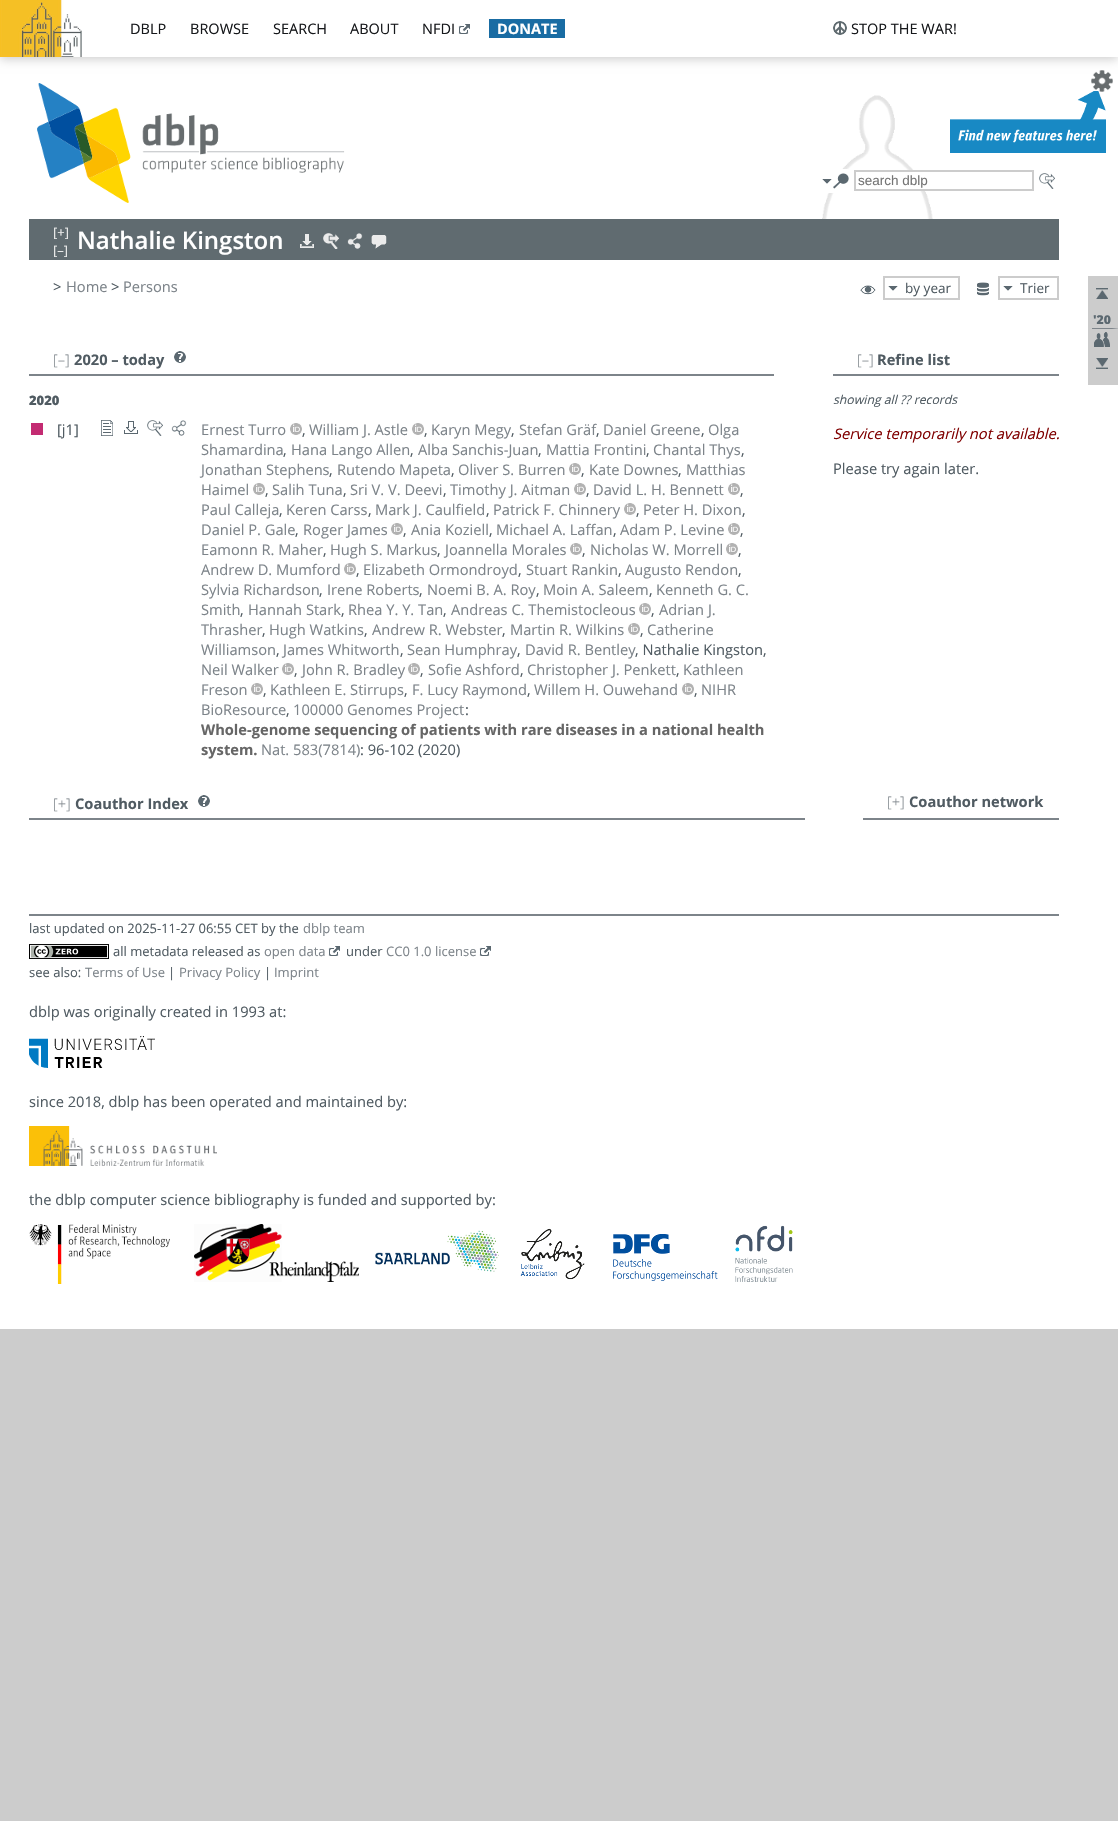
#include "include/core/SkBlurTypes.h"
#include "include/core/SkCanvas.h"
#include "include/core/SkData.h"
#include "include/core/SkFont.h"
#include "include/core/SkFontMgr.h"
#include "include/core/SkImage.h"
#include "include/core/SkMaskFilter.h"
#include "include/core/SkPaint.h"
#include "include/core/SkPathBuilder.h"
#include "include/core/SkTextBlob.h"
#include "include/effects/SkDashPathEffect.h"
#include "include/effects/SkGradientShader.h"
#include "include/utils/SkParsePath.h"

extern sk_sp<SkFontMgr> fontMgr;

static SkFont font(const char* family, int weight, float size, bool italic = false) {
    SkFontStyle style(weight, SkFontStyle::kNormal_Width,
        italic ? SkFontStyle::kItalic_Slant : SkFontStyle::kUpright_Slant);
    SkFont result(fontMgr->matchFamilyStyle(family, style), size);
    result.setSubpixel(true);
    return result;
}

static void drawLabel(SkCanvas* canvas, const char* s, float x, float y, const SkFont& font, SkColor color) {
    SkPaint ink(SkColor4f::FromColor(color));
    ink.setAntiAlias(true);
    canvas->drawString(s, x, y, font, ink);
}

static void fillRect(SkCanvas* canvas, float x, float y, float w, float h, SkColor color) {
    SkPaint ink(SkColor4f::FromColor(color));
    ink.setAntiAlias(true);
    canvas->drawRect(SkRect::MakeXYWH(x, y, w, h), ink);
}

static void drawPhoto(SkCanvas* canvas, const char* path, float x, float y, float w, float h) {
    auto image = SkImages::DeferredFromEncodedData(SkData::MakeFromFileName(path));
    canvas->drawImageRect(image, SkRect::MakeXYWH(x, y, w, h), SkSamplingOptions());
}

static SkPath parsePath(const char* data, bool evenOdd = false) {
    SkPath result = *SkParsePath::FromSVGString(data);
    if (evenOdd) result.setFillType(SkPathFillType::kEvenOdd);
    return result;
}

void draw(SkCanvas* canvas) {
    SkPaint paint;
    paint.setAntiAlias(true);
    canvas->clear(0xFFCCCCCC);
    fillRect(canvas, 0, 57, 1118, 1272, 0xFFFFFFFF);
    drawPhoto(canvas, "assets/img7.png", 950, 91, 156, 62);
    drawPhoto(canvas, "assets/img6.png", 1091, 70, 22, 22);
    paint.setColor(0x33000000);
    paint.setMaskFilter(SkMaskFilter::MakeBlur(kNormal_SkBlurStyle, 5));
    canvas->drawRect(SkRect::MakeXYWH(0, 2, 1118, 57), paint);
    paint.setMaskFilter(nullptr);
    fillRect(canvas, 82, 0, 1036, 57, 0xFFFFFFFF);
    drawPhoto(canvas, "assets/img1.png", 0, 0, 82, 57);
    SkFont font1 = font("Open Sans", 400, 14.5f);
    drawLabel(canvas, "DBLP", 130, 34, font1, 0xFF16181B);
    drawLabel(canvas, "BROWSE", 190, 34, font1, 0xFF16181B);
    drawLabel(canvas, "SEARCH", 273, 34, font1, 0xFF16181B);
    drawLabel(canvas, "ABOUT", 350, 34, font1, 0xFF16181B);
    drawLabel(canvas, "NFDI", 422, 34, font1, 0xFF16181B);
    drawPhoto(canvas, "assets/img2.png", 458, 24, 12, 10);
    fillRect(canvas, 489, 19, 76, 19, 0xFF196CA3);
    SkFont font2 = font("Open Sans", 700, 14.5f);
    drawLabel(canvas, "DONATE", 497, 34, font2, 0xFFFFFFFF);
    drawPhoto(canvas, "assets/img3.png", 833, 21, 14, 14);
    drawLabel(canvas, "STOP THE WAR!", 851, 34, font1, 0xFF16181B);
    drawPhoto(canvas, "assets/img4.png", 822, 95, 111, 124);
    drawPhoto(canvas, "assets/img5.png", 37, 83, 308, 120);
    fillRect(canvas, 828, 169, 20, 24, 0xFFFFFFFF);
    drawPhoto(canvas, "assets/img8.png", 822, 179, 10, 5);
    drawPhoto(canvas, "assets/img9.png", 833, 173, 16, 16);
    fillRect(canvas, 909, 172, 16, 17, 0xFFFFFFFF);
    paint.setStroke(true);
    paint.setStrokeWidth(2);
    paint.setColor(0xFFCCCCCC);
    canvas->drawRect(SkRect::MakeXYWH(855, 171, 178, 19), paint);
    SkFont font3 = font("Liberation Sans", 400, 13.5f);
    drawLabel(canvas, "search dblp", 858, 185, font3, 0xFF757575);
    drawPhoto(canvas, "assets/img10.png", 1039, 173, 16, 16);
    fillRect(canvas, 29, 219, 1030, 41, 0xFF606B70);
    SkFont font4 = font("Open Sans", 400, 13);
    drawLabel(canvas, "[+]", 53, 237, font4, 0xFFEBEBEB);
    drawLabel(canvas, "[–]", 53, 255, font4, 0xFFEBEBEB);
    SkFont font5 = font("Open Sans", 600, 24);
    drawLabel(canvas, "Nathalie Kingston", 77, 249, font5, 0xFFFFFFFF);
    drawPhoto(canvas, "assets/img11.png", 300, 234, 14, 14);
    drawPhoto(canvas, "assets/img12.png", 323, 233, 16, 16);
    drawPhoto(canvas, "assets/img13.png", 347, 233, 16, 16);
    drawPhoto(canvas, "assets/img14.png", 371, 235, 16, 14);
    SkFont font6 = font("Open Sans", 400, 14.65f);
    drawLabel(canvas, ">", 53, 292, font6, 0xFF505B62);
    drawLabel(canvas, "Home", 66, 292, font6, 0xFF7D848A);
    drawLabel(canvas, ">", 111, 292, font6, 0xFF505B62);
    drawLabel(canvas, "Persons", 123, 292, font6, 0xFF7D848A);
    drawPhoto(canvas, "assets/img15.png", 860, 285, 16, 10);
    drawPhoto(canvas, "assets/img8.png", 888, 286, 10, 5);
    canvas->drawRect(SkRect::MakeXYWH(884, 277, 75, 22), paint);
    SkFont font7 = font("Open Sans", 400, 13.5f);
    drawLabel(canvas, "by year", 905, 293, font7, 0xFF505B62);
    drawPhoto(canvas, "assets/img16.png", 977, 282, 12, 14);
    drawPhoto(canvas, "assets/img8.png", 1003, 286, 10, 5);
    canvas->drawRect(SkRect::MakeXYWH(999, 277, 59, 22), paint);
    drawLabel(canvas, "Trier", 1020, 293, font7, 0xFF505B62);
    fillRect(canvas, 1088, 276, 30, 109, 0xFFCCCCCC);
    drawPhoto(canvas, "assets/img17.png", 1096, 288, 12, 11);
    paint.setStroke(false);
    paint.setColor(0xFF7D848A);
    canvas->drawPath(parsePath("M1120 329H1092V328H1112Z"), paint);
    SkFont font8 = font("Open Sans", 800, 12.25f);
    drawLabel(canvas, "'20", 1093, 324, font8, 0xFF5B6870);
    drawPhoto(canvas, "assets/img18.png", 1094, 332, 16, 15);
    drawPhoto(canvas, "assets/img19.png", 1096, 358, 12, 11);
    fillRect(canvas, 29, 374, 745, 2, 0xFF7D848A);
    SkFont font9 = font("Open Sans", 300, 14.65f);
    drawLabel(canvas, "[–]", 53, 365, font9, 0xFF7D848A);
    SkFont font10 = font("Open Sans", 700, 14.65f);
    drawLabel(canvas, "2020 – today", 74, 365, font10, 0xFF505B62);
    drawPhoto(canvas, "assets/img20.png", 174, 351, 12, 12);
    SkFont font11 = font("Open Sans", 800, 13);
    drawLabel(canvas, "2020", 29, 405, font11, 0xFF505B62);
    fillRect(canvas, 31, 423, 12, 12, 0xFFC32B72);
    drawLabel(canvas, "[j1]", 57, 435, font6, 0xFF505B62);
    drawPhoto(canvas, "assets/img21.png", 101, 420, 12, 16);
    drawPhoto(canvas, "assets/img22.png", 124, 421, 14, 13);
    drawPhoto(canvas, "assets/img10.png", 147, 420, 16, 16);
    drawPhoto(canvas, "assets/img23.png", 171, 420, 16, 16);
    drawLabel(canvas, "Ernest Turro", 201, 435, font6, 0xFF7D848A);
    drawPhoto(canvas, "assets/img24.png", 290, 423, 12, 12);
    drawLabel(canvas, ",", 302, 435, font6, 0xFF505B62);
    drawLabel(canvas, "William J. Astle", 309, 435, font6, 0xFF7D848A);
    drawPhoto(canvas, "assets/img24.png", 412, 423, 12, 12);
    drawLabel(canvas, ",", 424, 435, font6, 0xFF505B62);
    drawLabel(canvas, "Karyn Megy", 431, 435, font6, 0xFF7D848A);
    drawLabel(canvas, ",", 511, 435, font6, 0xFF505B62);
    drawLabel(canvas, "Stefan Gräf", 519, 435, font6, 0xFF7D848A);
    drawLabel(canvas, ",", 596, 435, font6, 0xFF505B62);
    drawLabel(canvas, "Daniel Greene", 603, 435, font6, 0xFF7D848A);
    drawLabel(canvas, ",", 701, 435, font6, 0xFF505B62);
    drawLabel(canvas, "Olga", 708, 435, font6, 0xFF7D848A);
    drawLabel(canvas, "Shamardina", 201, 455, font6, 0xFF7D848A);
    drawLabel(canvas, ",", 283, 455, font6, 0xFF505B62);
    drawLabel(canvas, "Hana Lango Allen", 291, 455, font6, 0xFF7D848A);
    drawLabel(canvas, ",", 410, 455, font6, 0xFF505B62);
    drawLabel(canvas, "Alba Sanchis-Juan", 418, 455, font6, 0xFF7D848A);
    drawLabel(canvas, ",", 538, 455, font6, 0xFF505B62);
    drawLabel(canvas, "Mattia Frontini", 546, 455, font6, 0xFF7D848A);
    drawLabel(canvas, ",", 646, 455, font6, 0xFF505B62);
    drawLabel(canvas, "Chantal Thys", 653, 455, font6, 0xFF7D848A);
    drawLabel(canvas, ",", 741, 455, font6, 0xFF505B62);
    drawLabel(canvas, "Jonathan Stephens", 201, 475, font6, 0xFF7D848A);
    drawLabel(canvas, ",", 329, 475, font6, 0xFF505B62);
    drawLabel(canvas, "Rutendo Mapeta", 337, 475, font6, 0xFF7D848A);
    drawLabel(canvas, ",", 451, 475, font6, 0xFF505B62);
    drawLabel(canvas, "Oliver S. Burren", 458, 475, font6, 0xFF7D848A);
    drawPhoto(canvas, "assets/img24.png", 569, 463, 12, 12);
    drawLabel(canvas, ",", 581, 475, font6, 0xFF505B62);
    drawLabel(canvas, "Kate Downes", 589, 475, font6, 0xFF7D848A);
    drawLabel(canvas, ",", 678, 475, font6, 0xFF505B62);
    drawLabel(canvas, "Matthias", 686, 475, font6, 0xFF7D848A);
    drawLabel(canvas, "Haimel", 201, 495, font6, 0xFF7D848A);
    drawPhoto(canvas, "assets/img24.png", 253, 483, 12, 12);
    drawLabel(canvas, ",", 265, 495, font6, 0xFF505B62);
    drawLabel(canvas, "Salih Tuna", 272, 495, font6, 0xFF7D848A);
    drawLabel(canvas, ",", 343, 495, font6, 0xFF505B62);
    drawLabel(canvas, "Sri V. V. Deevi", 350, 495, font6, 0xFF7D848A);
    drawLabel(canvas, ",", 443, 495, font6, 0xFF505B62);
    drawLabel(canvas, "Timothy J. Aitman", 450, 495, font6, 0xFF7D848A);
    drawPhoto(canvas, "assets/img24.png", 574, 483, 12, 12);
    drawLabel(canvas, ",", 586, 495, font6, 0xFF505B62);
    drawLabel(canvas, "David L. H. Bennett", 593, 495, font6, 0xFF7D848A);
    drawPhoto(canvas, "assets/img24.png", 728, 483, 12, 12);
    drawLabel(canvas, ",", 740, 495, font6, 0xFF505B62);
    drawLabel(canvas, "Paul Calleja", 201, 515, font6, 0xFF7D848A);
    drawLabel(canvas, ",", 279, 515, font6, 0xFF505B62);
    drawLabel(canvas, "Keren Carss", 286, 515, font6, 0xFF7D848A);
    drawLabel(canvas, ",", 368, 515, font6, 0xFF505B62);
    drawLabel(canvas, "Mark J. Caulfield", 375, 515, font6, 0xFF7D848A);
    drawLabel(canvas, ",", 486, 515, font6, 0xFF505B62);
    drawLabel(canvas, "Patrick F. Chinnery", 493, 515, font6, 0xFF7D848A);
    drawPhoto(canvas, "assets/img24.png", 624, 503, 12, 12);
    drawLabel(canvas, ",", 636, 515, font6, 0xFF505B62);
    drawLabel(canvas, "Peter H. Dixon", 643, 515, font6, 0xFF7D848A);
    drawLabel(canvas, ",", 742, 515, font6, 0xFF505B62);
    drawLabel(canvas, "Daniel P. Gale", 201, 535, font6, 0xFF7D848A);
    drawLabel(canvas, ",", 295, 535, font6, 0xFF505B62);
    drawLabel(canvas, "Roger James", 303, 535, font6, 0xFF7D848A);
    drawPhoto(canvas, "assets/img24.png", 391, 523, 12, 12);
    drawLabel(canvas, ",", 403, 535, font6, 0xFF505B62);
    drawLabel(canvas, "Ania Koziell", 411, 535, font6, 0xFF7D848A);
    drawLabel(canvas, ",", 489, 535, font6, 0xFF505B62);
    drawLabel(canvas, "Michael A. Laffan", 496, 535, font6, 0xFF7D848A);
    drawLabel(canvas, ",", 613, 535, font6, 0xFF505B62);
    drawLabel(canvas, "Adam P. Levine", 620, 535, font6, 0xFF7D848A);
    drawPhoto(canvas, "assets/img24.png", 728, 523, 12, 12);
    drawLabel(canvas, ",", 740, 535, font6, 0xFF505B62);
    drawLabel(canvas, "Eamonn R. Maher", 201, 555, font6, 0xFF7D848A);
    drawLabel(canvas, ",", 323, 555, font6, 0xFF505B62);
    drawLabel(canvas, "Hugh S. Markus", 330, 555, font6, 0xFF7D848A);
    drawLabel(canvas, ",", 437, 555, font6, 0xFF505B62);
    drawLabel(canvas, "Joannella Morales", 445, 555, font6, 0xFF7D848A);
    drawPhoto(canvas, "assets/img24.png", 570, 543, 12, 12);
    drawLabel(canvas, ",", 582, 555, font6, 0xFF505B62);
    drawLabel(canvas, "Nicholas W. Morrell", 590, 555, font6, 0xFF7D848A);
    drawPhoto(canvas, "assets/img24.png", 726, 543, 12, 12);
    drawLabel(canvas, ",", 738, 555, font6, 0xFF505B62);
    drawLabel(canvas, "Andrew D. Mumford", 201, 575, font6, 0xFF7D848A);
    drawPhoto(canvas, "assets/img24.png", 344, 563, 12, 12);
    drawLabel(canvas, ",", 356, 575, font6, 0xFF505B62);
    drawLabel(canvas, "Elizabeth Ormondroyd", 363, 575, font6, 0xFF7D848A);
    drawLabel(canvas, ",", 518, 575, font6, 0xFF505B62);
    drawLabel(canvas, "Stuart Rankin", 526, 575, font6, 0xFF7D848A);
    drawLabel(canvas, ",", 618, 575, font6, 0xFF505B62);
    drawLabel(canvas, "Augusto Rendon", 625, 575, font6, 0xFF7D848A);
    drawLabel(canvas, ",", 738, 575, font6, 0xFF505B62);
    drawLabel(canvas, "Sylvia Richardson", 201, 595, font6, 0xFF7D848A);
    drawLabel(canvas, ",", 319, 595, font6, 0xFF505B62);
    drawLabel(canvas, "Irene Roberts", 327, 595, font6, 0xFF7D848A);
    drawLabel(canvas, ",", 419, 595, font6, 0xFF505B62);
    drawLabel(canvas, "Noemi B. A. Roy", 427, 595, font6, 0xFF7D848A);
    drawLabel(canvas, ",", 536, 595, font6, 0xFF505B62);
    drawLabel(canvas, "Moin A. Saleem", 543, 595, font6, 0xFF7D848A);
    drawLabel(canvas, ",", 649, 595, font6, 0xFF505B62);
    drawLabel(canvas, "Kenneth G. C.", 656, 595, font6, 0xFF7D848A);
    drawLabel(canvas, "Smith", 201, 615, font6, 0xFF7D848A);
    drawLabel(canvas, ",", 240, 615, font6, 0xFF505B62);
    drawLabel(canvas, "Hannah Stark", 248, 615, font6, 0xFF7D848A);
    drawLabel(canvas, ",", 341, 615, font6, 0xFF505B62);
    drawLabel(canvas, "Rhea Y. Y. Tan", 348, 615, font6, 0xFF7D848A);
    drawLabel(canvas, ",", 443, 615, font6, 0xFF505B62);
    drawLabel(canvas, "Andreas C. Themistocleous", 451, 615, font6, 0xFF7D848A);
    drawPhoto(canvas, "assets/img24.png", 639, 603, 12, 12);
    drawLabel(canvas, ",", 651, 615, font6, 0xFF505B62);
    drawLabel(canvas, "Adrian J.", 659, 615, font6, 0xFF7D848A);
    drawLabel(canvas, "Thrasher", 201, 635, font6, 0xFF7D848A);
    drawLabel(canvas, ",", 262, 635, font6, 0xFF505B62);
    drawLabel(canvas, "Hugh Watkins", 269, 635, font6, 0xFF7D848A);
    drawLabel(canvas, ",", 364, 635, font6, 0xFF505B62);
    drawLabel(canvas, "Andrew R. Webster", 372, 635, font6, 0xFF7D848A);
    drawLabel(canvas, ",", 502, 635, font6, 0xFF505B62);
    drawLabel(canvas, "Martin R. Wilkins", 510, 635, font6, 0xFF7D848A);
    drawPhoto(canvas, "assets/img24.png", 628, 623, 12, 12);
    drawLabel(canvas, ",", 640, 635, font6, 0xFF505B62);
    drawLabel(canvas, "Catherine", 647, 635, font6, 0xFF7D848A);
    drawLabel(canvas, "Williamson", 201, 655, font6, 0xFF7D848A);
    drawLabel(canvas, ",", 276, 655, font6, 0xFF505B62);
    drawLabel(canvas, "James Whitworth", 283, 655, font6, 0xFF7D848A);
    drawLabel(canvas, ",", 400, 655, font6, 0xFF505B62);
    drawLabel(canvas, "Sean Humphray", 407, 655, font6, 0xFF7D848A);
    drawLabel(canvas, ",", 517, 655, font6, 0xFF505B62);
    drawLabel(canvas, "David R. Bentley", 525, 655, font6, 0xFF7D848A);
    drawLabel(canvas, ", Nathalie Kingston,", 635, 655, font6, 0xFF505B62);
    drawLabel(canvas, "Neil Walker", 201, 675, font6, 0xFF7D848A);
    drawPhoto(canvas, "assets/img24.png", 282, 663, 12, 12);
    drawLabel(canvas, ",", 294, 675, font6, 0xFF505B62);
    drawLabel(canvas, "John R. Bradley", 302, 675, font6, 0xFF7D848A);
    drawPhoto(canvas, "assets/img24.png", 408, 663, 12, 12);
    drawLabel(canvas, ",", 420, 675, font6, 0xFF505B62);
    drawLabel(canvas, "Sofie Ashford", 428, 675, font6, 0xFF7D848A);
    drawLabel(canvas, ",", 520, 675, font6, 0xFF505B62);
    drawLabel(canvas, "Christopher J. Penkett", 527, 675, font6, 0xFF7D848A);
    drawLabel(canvas, ",", 676, 675, font6, 0xFF505B62);
    drawLabel(canvas, "Kathleen", 683, 675, font6, 0xFF7D848A);
    drawLabel(canvas, "Freson", 201, 695, font6, 0xFF7D848A);
    drawPhoto(canvas, "assets/img24.png", 251, 683, 12, 12);
    drawLabel(canvas, ",", 263, 695, font6, 0xFF505B62);
    drawLabel(canvas, "Kathleen E. Stirrups", 270, 695, font6, 0xFF7D848A);
    drawLabel(canvas, ",", 404, 695, font6, 0xFF505B62);
    drawLabel(canvas, "F. Lucy Raymond", 412, 695, font6, 0xFF7D848A);
    drawLabel(canvas, ",", 527, 695, font6, 0xFF505B62);
    drawLabel(canvas, "Willem H. Ouwehand", 534, 695, font6, 0xFF7D848A);
    drawPhoto(canvas, "assets/img24.png", 682, 683, 12, 12);
    drawLabel(canvas, ",", 694, 695, font6, 0xFF505B62);
    drawLabel(canvas, "NIHR", 701, 695, font6, 0xFF7D848A);
    drawLabel(canvas, "BioResource", 201, 715, font6, 0xFF7D848A);
    drawLabel(canvas, ",", 286, 715, font6, 0xFF505B62);
    drawLabel(canvas, "100000 Genomes Project", 293, 715, font6, 0xFF7D848A);
    drawLabel(canvas, ":", 465, 715, font6, 0xFF505B62);
    drawLabel(canvas, "Whole-genome sequencing of patients with rare diseases in a national health", 201, 735, font10, 0xFF666666);
    drawLabel(canvas, "system.", 201, 755, font10, 0xFF666666);
    drawLabel(canvas, "Nat. 583(7814)", 261, 755, font6, 0xFF7D848A);
    drawLabel(canvas, ": 96-102 (2020)", 360, 755, font6, 0xFF505B62);
    fillRect(canvas, 833, 374, 226, 2, 0xFF7D848A);
    drawLabel(canvas, "[–]", 857, 365, font9, 0xFF7D848A);
    drawLabel(canvas, "Refine list", 877, 365, font10, 0xFF505B62);
    SkFont font12 = font("Open Sans", 400, 12.25f, true);
    drawLabel(canvas, "showing all ?\077 records", 833, 404, font12, 0xFF505B62);
    SkFont font13 = font("Open Sans", 400, 14.65f, true);
    drawLabel(canvas, "Service temporarily not available.", 833, 439, font13, 0xFF800000);
    drawLabel(canvas, "Please try again later.", 833, 474, font6, 0xFF505B62);
    fillRect(canvas, 29, 818, 776, 2, 0xFF7D848A);
    drawLabel(canvas, "[+]", 53, 809, font9, 0xFF7D848A);
    drawLabel(canvas, "Coauthor Index", 75, 809, font10, 0xFF505B62);
    drawPhoto(canvas, "assets/img20.png", 198, 795, 12, 12);
    fillRect(canvas, 863, 818, 196, 2, 0xFF7D848A);
    drawLabel(canvas, "[+]", 887, 807, font9, 0xFF7D848A);
    drawLabel(canvas, "Coauthor network", 909, 807, font10, 0xFF505B62);
    fillRect(canvas, 29, 914, 1030, 2, 0xFF7D848A);
    drawLabel(canvas, "last updated on 2025-11-27 06:55 CET by the", 29, 933, font4, 0xFF505B62);
    drawLabel(canvas, "dblp team", 303, 933, font4, 0xFF7D848A);
    drawPhoto(canvas, "assets/img25.png", 29, 944, 80, 15);
    drawLabel(canvas, "all metadata released as", 113, 956, font4, 0xFF505B62);
    drawLabel(canvas, "open data", 264, 956, font4, 0xFF7D848A);
    drawPhoto(canvas, "assets/img2.png", 328, 946, 12, 10);
    drawLabel(canvas, "under", 346, 956, font4, 0xFF505B62);
    drawLabel(canvas, "CC0 1.0 license", 386, 956, font4, 0xFF7D848A);
    drawPhoto(canvas, "assets/img2.png", 479, 946, 12, 10);
    drawLabel(canvas, "see also:", 29, 977, font4, 0xFF505B62);
    drawLabel(canvas, "Terms of Use", 85, 977, font4, 0xFF7D848A);
    drawLabel(canvas, "|", 168, 977, font4, 0xFF505B62);
    drawLabel(canvas, "Privacy Policy", 179, 977, font4, 0xFF7D848A);
    drawLabel(canvas, "|", 264, 977, font4, 0xFF505B62);
    drawLabel(canvas, "Imprint", 274, 977, font4, 0xFF7D848A);
    drawLabel(canvas, "dblp was originally created in 1993 at:", 29, 1017, font6, 0xFF505B62);
    drawPhoto(canvas, "assets/img26.png", 29, 1036, 126, 32);
    drawLabel(canvas, "since 2018, dblp has been operated and maintained by:", 29, 1107, font6, 0xFF505B62);
    drawPhoto(canvas, "assets/img27.png", 29, 1126, 188, 40);
    drawLabel(canvas, "the dblp computer science bibliography is funded and supported by:", 29, 1205, font6, 0xFF505B62);
    drawPhoto(canvas, "assets/img28.png", 29, 1224, 141, 60);
    drawPhoto(canvas, "assets/img29.png", 194, 1224, 165, 58);
    drawPhoto(canvas, "assets/img30.png", 375, 1230, 124, 42);
    drawPhoto(canvas, "assets/img31.png", 520, 1228, 65, 52);
    drawPhoto(canvas, "assets/img32.png", 613, 1234, 105, 47);
    drawPhoto(canvas, "assets/img33.png", 735, 1225, 58, 57);
}
